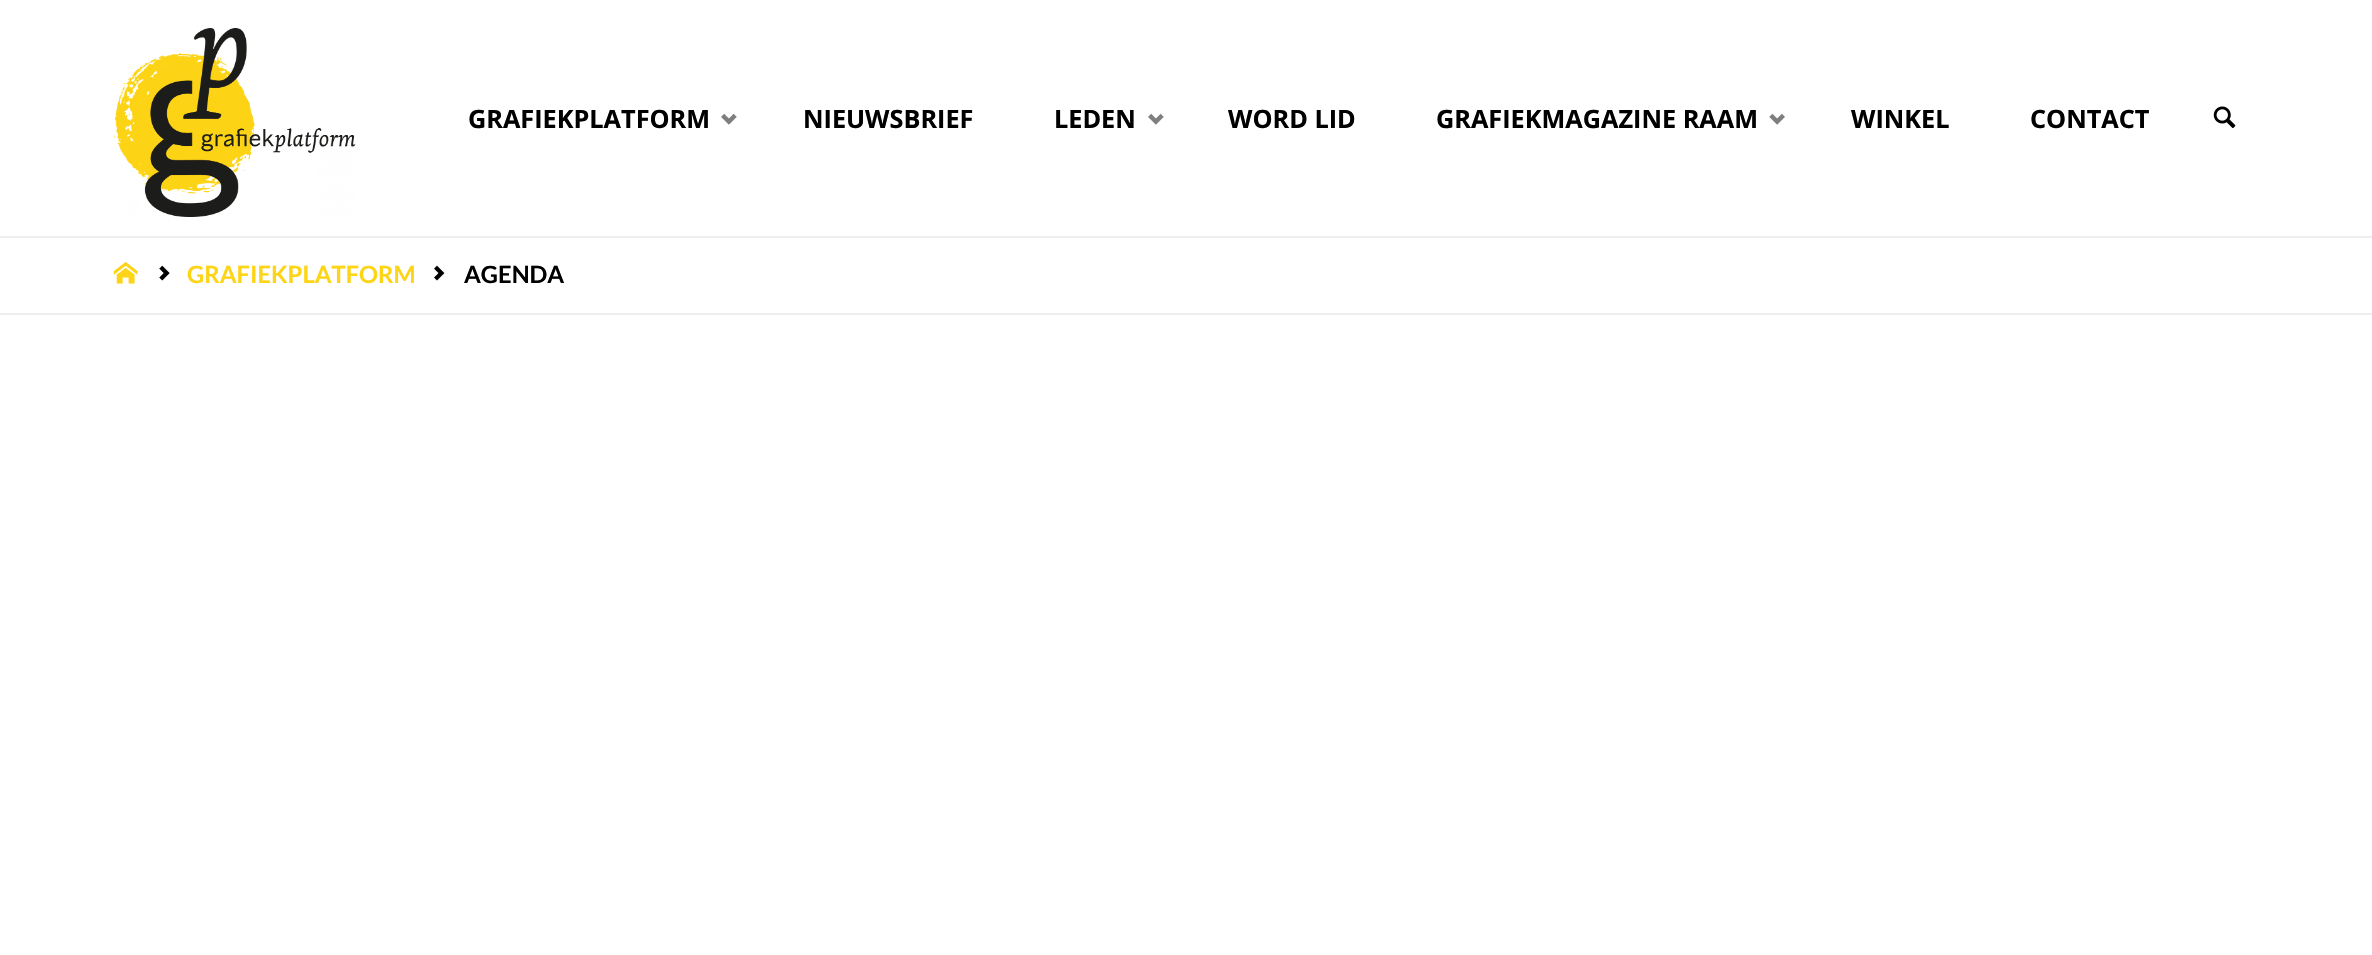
#include "include/core/SkBlurTypes.h"
#include "include/core/SkCanvas.h"
#include "include/core/SkData.h"
#include "include/core/SkFont.h"
#include "include/core/SkFontMgr.h"
#include "include/core/SkImage.h"
#include "include/core/SkMaskFilter.h"
#include "include/core/SkPaint.h"
#include "include/core/SkPathBuilder.h"
#include "include/core/SkTextBlob.h"
#include "include/effects/SkDashPathEffect.h"
#include "include/effects/SkGradientShader.h"
#include "include/utils/SkParsePath.h"

extern sk_sp<SkFontMgr> fontMgr;

static SkFont font(const char* family, int weight, float size, bool italic = false) {
    SkFontStyle style(weight, SkFontStyle::kNormal_Width,
        italic ? SkFontStyle::kItalic_Slant : SkFontStyle::kUpright_Slant);
    SkFont result(fontMgr->matchFamilyStyle(family, style), size);
    result.setSubpixel(true);
    return result;
}

static void drawLabel(SkCanvas* canvas, const char* s, float x, float y, const SkFont& font, SkColor color) {
    SkPaint ink(SkColor4f::FromColor(color));
    ink.setAntiAlias(true);
    canvas->drawString(s, x, y, font, ink);
}

static void fillRect(SkCanvas* canvas, float x, float y, float w, float h, SkColor color) {
    SkPaint ink(SkColor4f::FromColor(color));
    ink.setAntiAlias(true);
    canvas->drawRect(SkRect::MakeXYWH(x, y, w, h), ink);
}

static void drawPhoto(SkCanvas* canvas, const char* path, float x, float y, float w, float h) {
    auto image = SkImages::DeferredFromEncodedData(SkData::MakeFromFileName(path));
    canvas->drawImageRect(image, SkRect::MakeXYWH(x, y, w, h), SkSamplingOptions());
}

void draw(SkCanvas* canvas) {
    SkPaint paint;
    paint.setAntiAlias(true);
    canvas->clear(0xFFFFFFFF);
    fillRect(canvas, 0, 236, 2372, 2, 0xFFEEEEEE);
    drawPhoto(canvas, "assets/img1.png", 113, 28, 243, 189);
    SkFont font1 = font("Open Sans", 700, 25.25f);
    drawLabel(canvas, "GRAFIEKPLATFORM", 468, 128, font1, 0xFF000000);
    drawPhoto(canvas, "assets/img2.png", 721, 113, 16, 12);
    drawLabel(canvas, "NIEUWSBRIEF", 803, 128, font1, 0xFF000000);
    drawLabel(canvas, "LEDEN", 1054, 128, font1, 0xFF000000);
    drawPhoto(canvas, "assets/img2.png", 1148, 113, 16, 12);
    drawLabel(canvas, "WORD LID", 1228, 128, font1, 0xFF000000);
    drawLabel(canvas, "GRAFIEKMAGAZINE RAAM", 1436, 128, font1, 0xFF000000);
    drawPhoto(canvas, "assets/img3.png", 1769, 113, 16, 12);
    drawLabel(canvas, "WINKEL", 1851, 128, font1, 0xFF000000);
    drawLabel(canvas, "CONTACT", 2030, 128, font1, 0xFF000000);
    drawPhoto(canvas, "assets/img4.png", 2213, 106, 23, 22);
    fillRect(canvas, 0, 313, 2372, 2, 0xFFEEEEEE);
    drawPhoto(canvas, "assets/img5.png", 113, 262, 25, 22);
    drawPhoto(canvas, "assets/img6.png", 159, 265, 11, 16);
    SkFont font2 = font("Lato", 700, 23.75f);
    drawLabel(canvas, "GRAFIEKPLATFORM", 187, 283, font2, 0xFFFED416);
    drawPhoto(canvas, "assets/img7.png", 434, 265, 11, 16);
    drawLabel(canvas, "AGENDA", 464, 283, font2, 0xFF000000);
}
